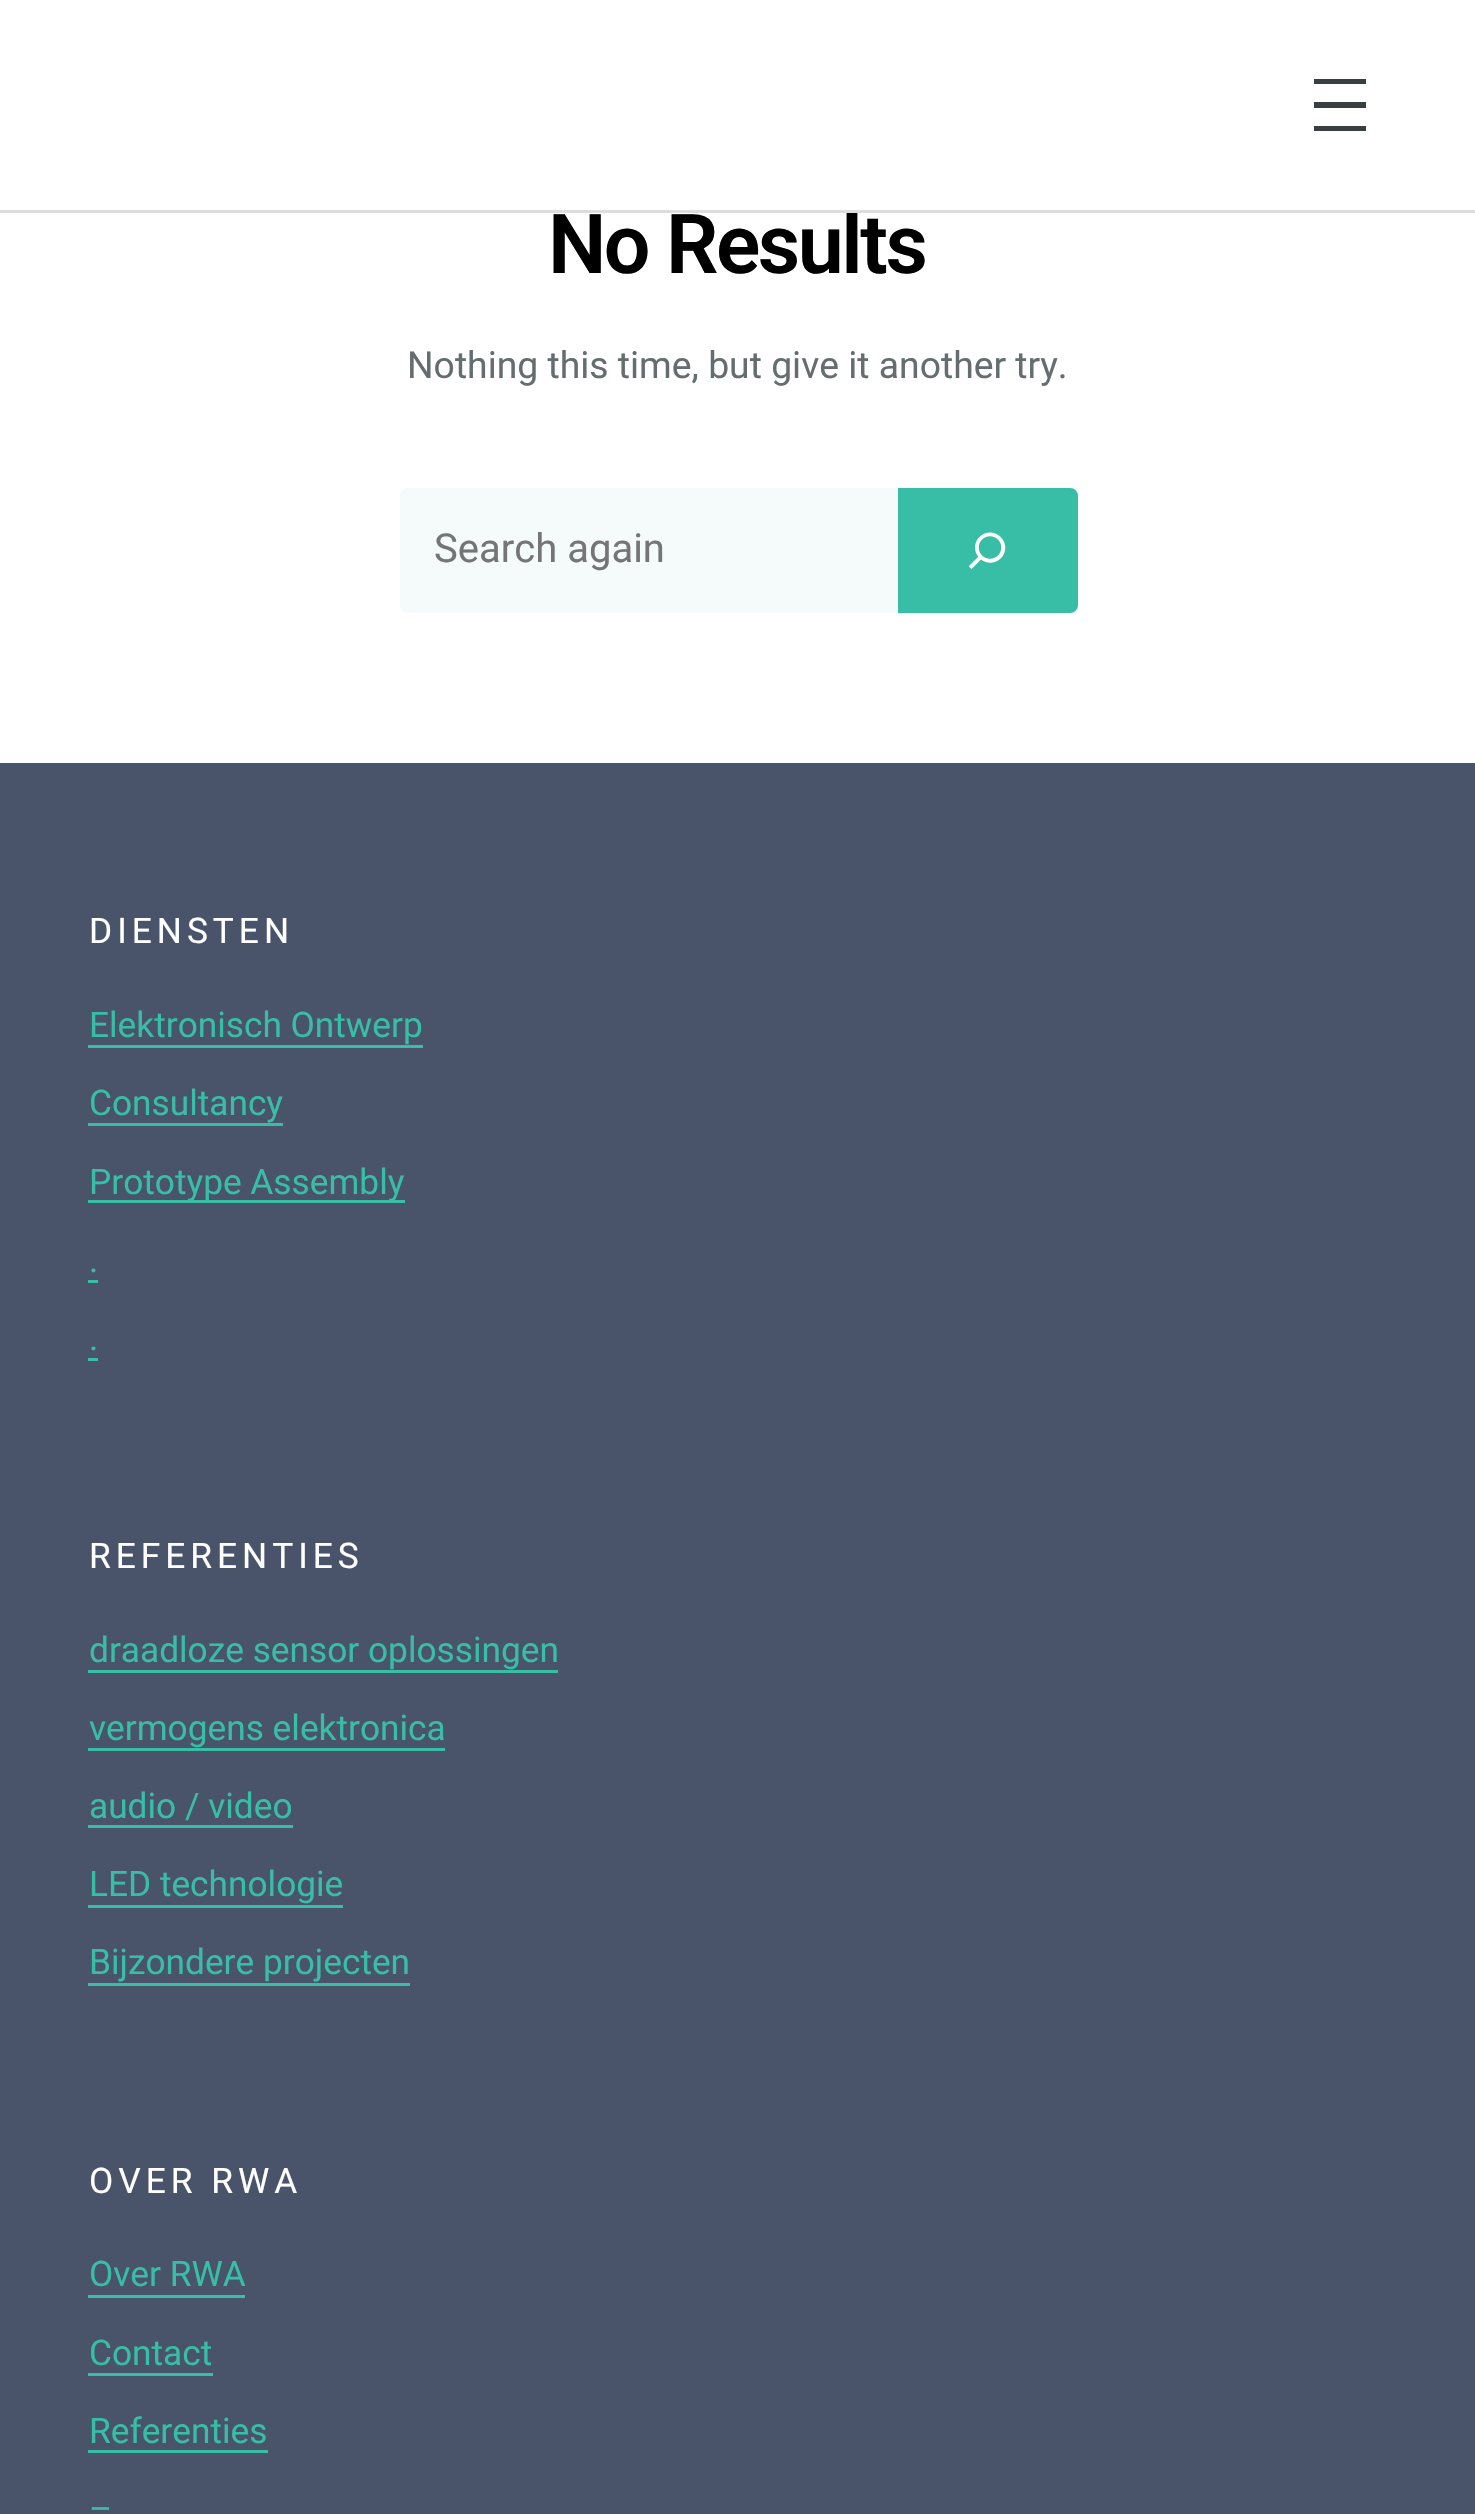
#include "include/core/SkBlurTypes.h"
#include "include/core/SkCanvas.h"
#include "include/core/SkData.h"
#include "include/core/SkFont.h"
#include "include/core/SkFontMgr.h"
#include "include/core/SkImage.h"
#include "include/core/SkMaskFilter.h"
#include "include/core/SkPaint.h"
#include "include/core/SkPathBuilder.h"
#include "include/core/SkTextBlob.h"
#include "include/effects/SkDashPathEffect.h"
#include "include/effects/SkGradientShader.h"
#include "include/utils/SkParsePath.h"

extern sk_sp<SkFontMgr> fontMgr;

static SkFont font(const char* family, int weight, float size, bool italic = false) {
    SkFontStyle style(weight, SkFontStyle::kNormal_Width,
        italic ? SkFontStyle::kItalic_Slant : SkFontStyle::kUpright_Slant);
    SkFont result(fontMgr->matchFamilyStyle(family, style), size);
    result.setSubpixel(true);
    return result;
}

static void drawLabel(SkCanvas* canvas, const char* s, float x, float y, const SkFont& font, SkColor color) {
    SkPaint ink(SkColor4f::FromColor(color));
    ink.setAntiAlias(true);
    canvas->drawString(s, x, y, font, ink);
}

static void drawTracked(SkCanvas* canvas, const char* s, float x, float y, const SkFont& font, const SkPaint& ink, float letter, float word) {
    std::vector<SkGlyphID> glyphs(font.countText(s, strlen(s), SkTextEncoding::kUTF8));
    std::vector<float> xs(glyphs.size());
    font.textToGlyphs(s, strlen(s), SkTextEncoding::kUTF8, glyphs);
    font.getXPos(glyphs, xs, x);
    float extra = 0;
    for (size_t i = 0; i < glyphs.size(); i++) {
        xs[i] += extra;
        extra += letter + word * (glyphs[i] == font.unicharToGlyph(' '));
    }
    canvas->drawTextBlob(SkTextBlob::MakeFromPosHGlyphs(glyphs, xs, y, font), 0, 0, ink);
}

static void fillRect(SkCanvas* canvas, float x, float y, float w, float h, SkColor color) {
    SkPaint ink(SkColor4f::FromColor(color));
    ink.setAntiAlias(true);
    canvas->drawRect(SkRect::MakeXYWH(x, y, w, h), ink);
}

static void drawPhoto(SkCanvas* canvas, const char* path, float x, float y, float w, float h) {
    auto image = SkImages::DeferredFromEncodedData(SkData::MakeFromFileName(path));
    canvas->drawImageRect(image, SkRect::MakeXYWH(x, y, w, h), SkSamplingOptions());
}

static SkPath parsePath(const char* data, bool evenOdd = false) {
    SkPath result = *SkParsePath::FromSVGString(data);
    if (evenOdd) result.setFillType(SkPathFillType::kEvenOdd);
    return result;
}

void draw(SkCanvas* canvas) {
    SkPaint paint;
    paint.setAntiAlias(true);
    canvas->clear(0xFFFFFFFF);
    SkFont font1 = font("Roboto", 600, 82.5f);
    paint.setColor(0xFF000000);
    drawTracked(canvas, "No Results", 548, 273, font1, paint, -2.5f, 0);
    fillRect(canvas, 0, 210, 1475, 3, 0xFFDDDDDD);
    paint.setColor(0xFF383F40);
    canvas->drawPath(parsePath("M1314 79V84H1366V79ZM1314 108H1366V102H1314ZM1314 131H1366V126H1314Z"), paint);
    SkFont font2 = font("Roboto", 400, 37.3f);
    drawLabel(canvas, "Nothing this time, but give it another try.", 407, 378, font2, 0xFF656D6F);
    paint.setColor(0xFFF5FAFA);
    canvas->drawPath(parsePath("M408 488H903V613H408C403.5 613 400 609.5 400 605V496C400 491.5 403.5 488 408 488Z"), paint);
    SkFont font3 = font("Roboto", 400, 40);
    drawLabel(canvas, "Search again", 434, 562, font3, 0xFF757575);
    paint.setColor(0xFF38BDA6);
    canvas->drawPath(parsePath("M898 488H1070C1074.5 488 1078 491.5 1078 496V605C1078 609.5 1074.5 613 1070 613H898Z"), paint);
    drawPhoto(canvas, "assets/img1.png", 968, 532, 38, 37);
    fillRect(canvas, 0, 763, 1475, 1751, 0xFF495369);
    SkFont font4 = font("Roboto", 400, 35.25f);
    paint.setColor(0xFFFFFFFF);
    drawTracked(canvas, "DIENSTEN", 89, 943, font4, paint, 5, 0);
    drawLabel(canvas, "Elektronisch Ontwerp", 89, 1037, font4, 0xFF38BDA6);
    fillRect(canvas, 88, 1045, 335, 3, 0xFF38BDA6);
    drawLabel(canvas, "Consultancy", 89, 1115, font4, 0xFF38BDA6);
    fillRect(canvas, 88, 1123, 195, 3, 0xFF38BDA6);
    fillRect(canvas, 88, 1200, 317, 3, 0xFF38BDA6);
    drawLabel(canvas, "Prototype Assembly", 89, 1194, font4, 0xFF38BDA6);
    drawLabel(canvas, ".", 89, 1272, font4, 0xFF38BDA6);
    fillRect(canvas, 88, 1280, 10, 3, 0xFF38BDA6);
    drawLabel(canvas, ".", 89, 1350, font4, 0xFF38BDA6);
    fillRect(canvas, 88, 1358, 10, 3, 0xFF38BDA6);
    drawTracked(canvas, "REFERENTIES", 89, 1568, font4, paint, 5, 0);
    drawLabel(canvas, "draadloze sensor oplossingen", 89, 1662, font4, 0xFF38BDA6);
    fillRect(canvas, 88, 1670, 470, 3, 0xFF38BDA6);
    drawLabel(canvas, "vermogens elektronica", 89, 1740, font4, 0xFF38BDA6);
    fillRect(canvas, 88, 1748, 357, 3, 0xFF38BDA6);
    drawLabel(canvas, "audio / video", 89, 1818, font4, 0xFF38BDA6);
    fillRect(canvas, 88, 1825, 205, 3, 0xFF38BDA6);
    drawLabel(canvas, "LED technologie", 89, 1896, font4, 0xFF38BDA6);
    fillRect(canvas, 88, 1905, 255, 3, 0xFF38BDA6);
    drawLabel(canvas, "Bijzondere projecten", 89, 1974, font4, 0xFF38BDA6);
    fillRect(canvas, 88, 1983, 322, 3, 0xFF38BDA6);
    drawTracked(canvas, "OVER RWA", 89, 2193, font4, paint, 5, 0);
    drawLabel(canvas, "Over RWA", 89, 2286, font4, 0xFF38BDA6);
    fillRect(canvas, 88, 2295, 157, 3, 0xFF38BDA6);
    drawLabel(canvas, "Contact", 89, 2365, font4, 0xFF38BDA6);
    fillRect(canvas, 88, 2373, 125, 3, 0xFF38BDA6);
    drawLabel(canvas, "Referenties", 89, 2443, font4, 0xFF38BDA6);
    fillRect(canvas, 88, 2450, 180, 3, 0xFF38BDA6);
    drawLabel(canvas, "–", 89, 2521, font4, 0xFF38BDA6);
}
